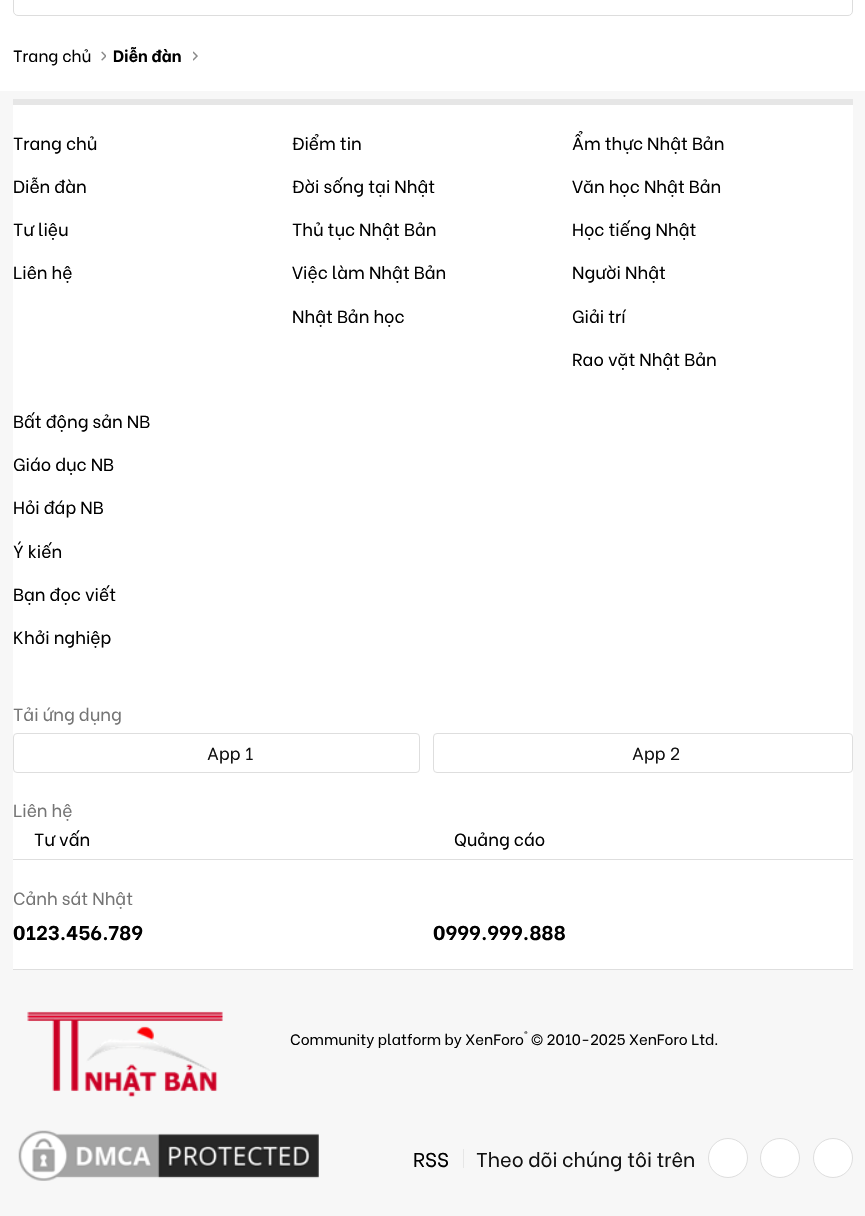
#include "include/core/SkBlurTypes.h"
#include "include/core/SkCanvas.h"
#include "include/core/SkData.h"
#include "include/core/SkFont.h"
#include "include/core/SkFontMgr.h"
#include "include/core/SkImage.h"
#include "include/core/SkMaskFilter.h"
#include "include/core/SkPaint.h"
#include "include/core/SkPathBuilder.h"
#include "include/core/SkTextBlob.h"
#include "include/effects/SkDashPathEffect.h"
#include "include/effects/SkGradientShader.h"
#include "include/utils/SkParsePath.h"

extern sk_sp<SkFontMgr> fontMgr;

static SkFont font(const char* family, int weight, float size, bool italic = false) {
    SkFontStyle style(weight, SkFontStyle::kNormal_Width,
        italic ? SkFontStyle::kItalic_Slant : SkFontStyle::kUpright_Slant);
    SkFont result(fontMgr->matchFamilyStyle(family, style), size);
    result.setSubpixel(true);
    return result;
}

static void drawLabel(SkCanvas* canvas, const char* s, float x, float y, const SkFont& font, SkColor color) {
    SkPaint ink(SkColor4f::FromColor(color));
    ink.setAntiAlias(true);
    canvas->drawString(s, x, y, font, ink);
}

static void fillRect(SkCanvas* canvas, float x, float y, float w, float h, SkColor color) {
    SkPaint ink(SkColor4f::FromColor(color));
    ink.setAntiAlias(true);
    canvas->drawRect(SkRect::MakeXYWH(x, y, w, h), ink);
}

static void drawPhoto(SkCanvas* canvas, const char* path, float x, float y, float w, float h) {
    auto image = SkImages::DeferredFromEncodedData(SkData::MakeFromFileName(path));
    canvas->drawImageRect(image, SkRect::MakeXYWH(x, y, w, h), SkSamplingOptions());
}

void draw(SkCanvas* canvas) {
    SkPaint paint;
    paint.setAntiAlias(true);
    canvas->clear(0xFFFFFFFF);
    paint.setStroke(true);
    paint.setStrokeWidth(1);
    paint.setColor(0xFFDDDDDD);
    canvas->drawRoundRect(SkRect::MakeXYWH(13.5f, -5.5f, 839, 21), 4.5f, 4.5f, paint);
    SkFont font1 = font("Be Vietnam", 400, 16.25f);
    drawLabel(canvas, "Trang chủ", 13, 62, font1, 0xFF000000);
    drawPhoto(canvas, "assets/img1.png", 101, 51, 5, 10);
    SkFont font2 = font("Be Vietnam", 700, 16.25f);
    drawLabel(canvas, "Diễn đàn", 113, 62, font2, 0xFF000000);
    drawPhoto(canvas, "assets/img2.png", 193, 51, 5, 10);
    fillRect(canvas, 0, 91, 865, 1125, 0xFFF7F7F7);
    fillRect(canvas, 13, 105, 840, 864, 0xFFFFFFFF);
    fillRect(canvas, 13, 99, 840, 6, 0xFFE6E6E6);
    SkFont font3 = font("Be Vietnam", 400, 17.5f);
    drawLabel(canvas, "Trang chủ", 13, 150, font3, 0xFF000000);
    drawLabel(canvas, "Diễn đàn", 13, 193, font3, 0xFF000000);
    drawLabel(canvas, "Tư liệu", 13, 236, font3, 0xFF000000);
    drawLabel(canvas, "Liên hệ", 13, 279, font3, 0xFF000000);
    drawLabel(canvas, "Điểm tin", 292, 150, font3, 0xFF000000);
    drawLabel(canvas, "Đời sống tại Nhật", 292, 193, font3, 0xFF000000);
    drawLabel(canvas, "Thủ tục Nhật Bản", 292, 236, font3, 0xFF000000);
    drawLabel(canvas, "Việc làm Nhật Bản", 292, 279, font3, 0xFF000000);
    drawLabel(canvas, "Nhật Bản học", 292, 323, font3, 0xFF000000);
    drawLabel(canvas, "Ẩm thực Nhật Bản", 572, 150, font3, 0xFF000000);
    drawLabel(canvas, "Văn học Nhật Bản", 572, 193, font3, 0xFF000000);
    drawLabel(canvas, "Học tiếng Nhật", 572, 236, font3, 0xFF000000);
    drawLabel(canvas, "Người Nhật", 572, 279, font3, 0xFF000000);
    drawLabel(canvas, "Giải trí", 572, 323, font3, 0xFF000000);
    drawLabel(canvas, "Rao vặt Nhật Bản", 572, 366, font3, 0xFF000000);
    drawLabel(canvas, "Bất động sản NB", 13, 428, font3, 0xFF000000);
    drawLabel(canvas, "Giáo dục NB", 13, 471, font3, 0xFF000000);
    drawLabel(canvas, "Hỏi đáp NB", 13, 514, font3, 0xFF000000);
    drawLabel(canvas, "Ý kiến", 13, 558, font3, 0xFF000000);
    drawLabel(canvas, "Bạn đọc viết", 13, 601, font3, 0xFF000000);
    drawLabel(canvas, "Khởi nghiệp", 13, 644, font3, 0xFF000000);
    drawLabel(canvas, "Tải ứng dụng", 13, 721, font3, 0xFF757575);
    paint.setColor(0xFFDEDEDE);
    canvas->drawRoundRect(SkRect::MakeXYWH(13.5f, 733.5f, 406, 39), 3.5f, 3.5f, paint);
    drawLabel(canvas, "App 1", 207, 760, font3, 0xFF111111);
    canvas->drawRoundRect(SkRect::MakeXYWH(433.5f, 733.5f, 419, 39), 3.5f, 3.5f, paint);
    drawLabel(canvas, "App 2", 632, 760, font3, 0xFF111111);
    drawLabel(canvas, "Liên hệ", 13, 817, font3, 0xFF757575);
    drawLabel(canvas, "Tư vấn", 34, 846, font3, 0xFF000000);
    drawLabel(canvas, "Quảng cáo", 454, 846, font3, 0xFF000000);
    fillRect(canvas, 13, 859, 840, 1, 0xFFDEDEDE);
    drawLabel(canvas, "Cảnh sát Nhật", 13, 905, font3, 0xFF757575);
    SkFont font4 = font("Be Vietnam", 700, 20);
    drawLabel(canvas, "0123.456.789", 13, 940, font4, 0xFF000000);
    drawLabel(canvas, "0999.999.888", 433, 940, font4, 0xFF000000);
    fillRect(canvas, 13, 969, 840, 1, 0xFFDEDEDE);
    drawPhoto(canvas, "assets/img3.png", 27, 1011, 196, 86);
    SkFont font5 = font("Be Vietnam", 400, 11);
    drawLabel(canvas, "®", 524, 1039, font5, 0xFF000000);
    SkFont font6 = font("Be Vietnam", 400, 15);
    drawLabel(canvas, "Community platform by XenForo", 290, 1045, font6, 0xFF000000);
    drawLabel(canvas, "© 2010-2025 XenForo Ltd.", 531, 1045, font6, 0xFF000000);
    drawPhoto(canvas, "assets/img4.png", 18, 1130, 301, 51);
    SkFont font7 = font("Be Vietnam", 400, 20);
    drawLabel(canvas, "RSS", 413, 1167, font7, 0xFF000000);
    fillRect(canvas, 463, 1149, 1, 19, 0xFFE6E6E6);
    drawLabel(canvas, "Theo dõi chúng tôi trên", 476, 1167, font7, 0xFF111111);
    paint.setStroke(false);
    paint.setColor(0xFFFFFFFF);
    canvas->drawCircle(728, 1158, 19.5f, paint);
    paint.setStroke(true);
    paint.setColor(0xFFDEDEDE);
    canvas->drawCircle(728, 1158, 19.5f, paint);
    paint.setStroke(false);
    paint.setColor(0xFFFFFFFF);
    canvas->drawCircle(780, 1158, 19.5f, paint);
    paint.setStroke(true);
    paint.setColor(0xFFDEDEDE);
    canvas->drawCircle(780, 1158, 19.5f, paint);
    paint.setStroke(false);
    paint.setColor(0xFFFFFFFF);
    canvas->drawCircle(833, 1158, 19.5f, paint);
    paint.setStroke(true);
    paint.setColor(0xFFDEDEDE);
    canvas->drawCircle(833, 1158, 19.5f, paint);
}
